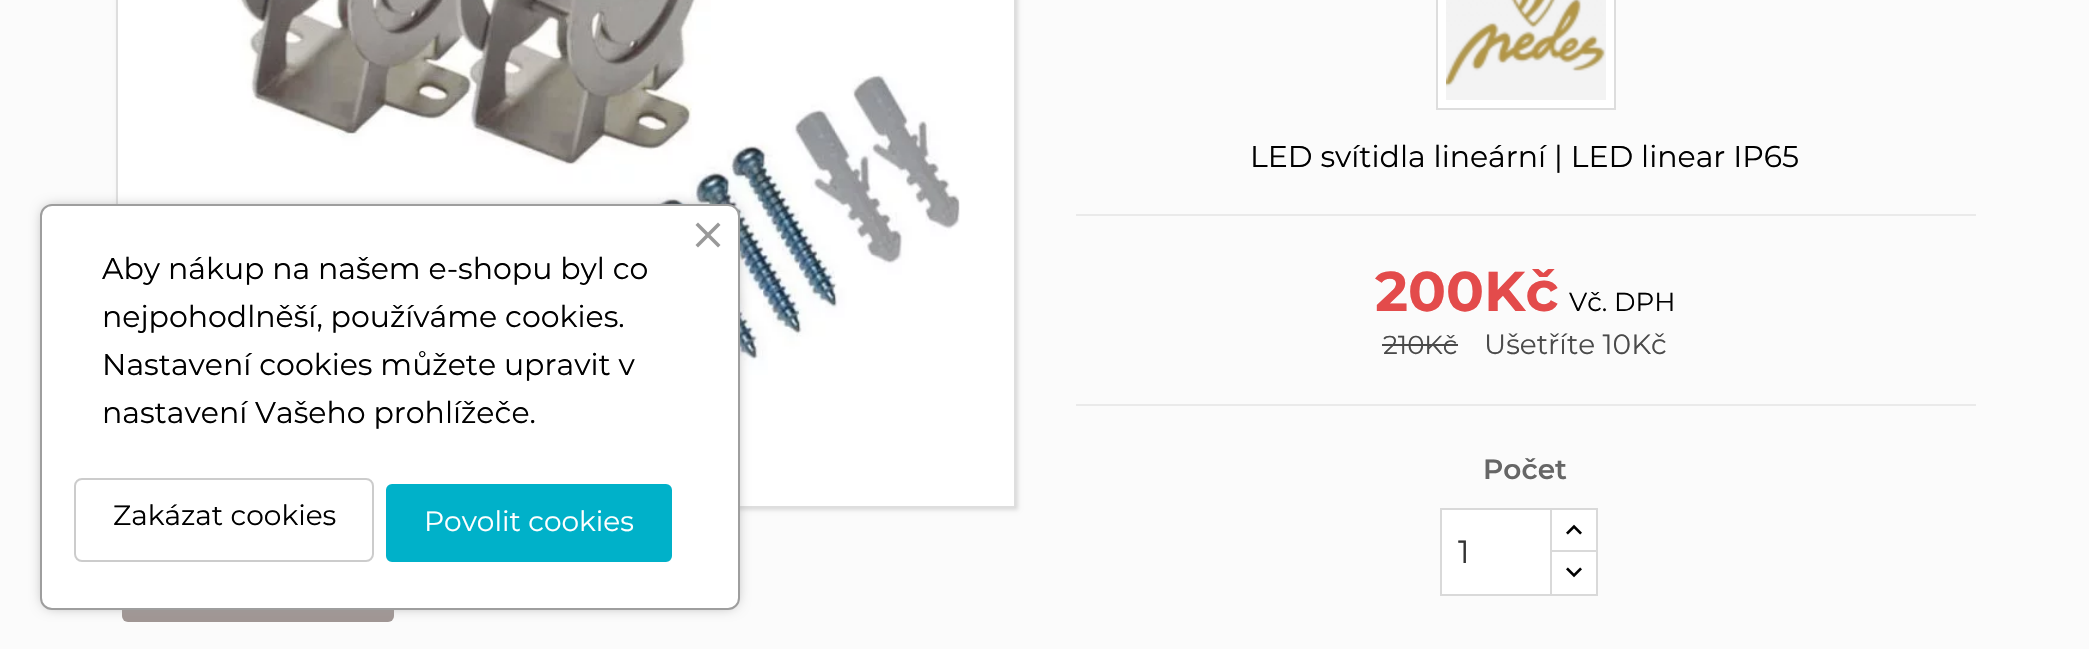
#include "include/core/SkBlurTypes.h"
#include "include/core/SkCanvas.h"
#include "include/core/SkData.h"
#include "include/core/SkFont.h"
#include "include/core/SkFontMgr.h"
#include "include/core/SkImage.h"
#include "include/core/SkMaskFilter.h"
#include "include/core/SkPaint.h"
#include "include/core/SkPathBuilder.h"
#include "include/core/SkTextBlob.h"
#include "include/effects/SkDashPathEffect.h"
#include "include/effects/SkGradientShader.h"
#include "include/utils/SkParsePath.h"

extern sk_sp<SkFontMgr> fontMgr;

static SkFont font(const char* family, int weight, float size, bool italic = false) {
    SkFontStyle style(weight, SkFontStyle::kNormal_Width,
        italic ? SkFontStyle::kItalic_Slant : SkFontStyle::kUpright_Slant);
    SkFont result(fontMgr->matchFamilyStyle(family, style), size);
    result.setSubpixel(true);
    return result;
}

static void drawLabel(SkCanvas* canvas, const char* s, float x, float y, const SkFont& font, SkColor color) {
    SkPaint ink(SkColor4f::FromColor(color));
    ink.setAntiAlias(true);
    canvas->drawString(s, x, y, font, ink);
}

static void fillRect(SkCanvas* canvas, float x, float y, float w, float h, SkColor color) {
    SkPaint ink(SkColor4f::FromColor(color));
    ink.setAntiAlias(true);
    canvas->drawRect(SkRect::MakeXYWH(x, y, w, h), ink);
}

static void fillRRect(SkCanvas* canvas, float x, float y, float w, float h, float radius, SkColor color) {
    SkPaint ink(SkColor4f::FromColor(color));
    ink.setAntiAlias(true);
    canvas->drawRoundRect(SkRect::MakeXYWH(x, y, w, h), radius, radius, ink);
}

static void drawPhoto(SkCanvas* canvas, const char* path, float x, float y, float w, float h) {
    auto image = SkImages::DeferredFromEncodedData(SkData::MakeFromFileName(path));
    canvas->drawImageRect(image, SkRect::MakeXYWH(x, y, w, h), SkSamplingOptions());
}

static SkPath parsePath(const char* data, bool evenOdd = false) {
    SkPath result = *SkParsePath::FromSVGString(data);
    if (evenOdd) result.setFillType(SkPathFillType::kEvenOdd);
    return result;
}

void draw(SkCanvas* canvas) {
    SkPaint paint;
    paint.setAntiAlias(true);
    canvas->clear(0xFFFBFBFB);
    paint.setColor(0x21000000);
    paint.setMaskFilter(SkMaskFilter::MakeBlur(kNormal_SkBlurStyle, 2));
    canvas->drawRect(SkRect::MakeXYWH(118, -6, 900, 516), paint);
    paint.setMaskFilter(nullptr);
    paint.setStroke(true);
    paint.setStrokeWidth(2);
    paint.setColor(0xFFDEDEDE);
    canvas->drawRect(SkRect::MakeXYWH(117, -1, 898, 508), paint);
    fillRect(canvas, 118, 0, 896, 506, 0xFFFFFFFF);
    drawPhoto(canvas, "assets/img1.png", 237, 0, 723, 451);
    fillRRect(canvas, 122, 568, 272, 54, 6, 0xFFA09694);
    paint.setStroke(false);
    paint.setColor(0xFF9E9E9E);
    paint.setMaskFilter(SkMaskFilter::MakeBlur(kNormal_SkBlurStyle, 7));
    canvas->drawRoundRect(SkRect::MakeXYWH(44, 208, 692, 398), 8, 8, paint);
    paint.setMaskFilter(nullptr);
    paint.setColor(0xFFFFFFFF);
    canvas->drawRoundRect(SkRect::MakeXYWH(41, 205, 698, 404), 11, 11, paint);
    paint.setStroke(true);
    paint.setColor(0xFF9E9E9E);
    canvas->drawRoundRect(SkRect::MakeXYWH(41, 205, 698, 404), 11, 11, paint);
    paint.setStroke(false);
    paint.setColor(0xFF999999);
    canvas->drawPath(parsePath("M695.5 245L718 222.5L720.5 225L698 247.5Z"), paint);
    canvas->drawPath(parsePath("M698 222.5L720.5 245L718 247.5L695.5 225Z"), paint);
    SkFont font1 = font("Montserrat", 400, 30);
    drawLabel(canvas, "Aby nákup na našem e-shopu byl co", 102, 279, font1, 0xFF000000);
    drawLabel(canvas, "nejpohodlněší, používáme cookies.", 102, 327, font1, 0xFF000000);
    drawLabel(canvas, "Nastavení cookies můžete upravit v", 102, 375, font1, 0xFF000000);
    drawLabel(canvas, "nastavení Vašeho prohlížeče.", 102, 423, font1, 0xFF000000);
    paint.setStroke(true);
    paint.setColor(0xFFCCCCCC);
    canvas->drawRoundRect(SkRect::MakeXYWH(75, 479, 298, 82), 7, 7, paint);
    SkFont font2 = font("Montserrat", 400, 28);
    drawLabel(canvas, "Zakázat cookies", 113, 525, font2, 0xFF000000);
    paint.setStroke(false);
    paint.setColor(0xFF00B1C9);
    canvas->drawRoundRect(SkRect::MakeXYWH(387, 485, 284, 76), 5, 5, paint);
    paint.setStroke(true);
    canvas->drawRoundRect(SkRect::MakeXYWH(387, 485, 284, 76), 5, 5, paint);
    drawLabel(canvas, "Povolit cookies", 424, 531, font2, 0xFFFFFFFF);
    paint.setStroke(false);
    paint.setColor(0xFFFFFFFF);
    canvas->drawRect(SkRect::MakeXYWH(1437, -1, 178, 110), paint);
    paint.setStroke(true);
    paint.setColor(0xFFDDDDDD);
    canvas->drawRect(SkRect::MakeXYWH(1437, -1, 178, 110), paint);
    drawPhoto(canvas, "assets/img2.png", 1446, 0, 160, 100);
    drawLabel(canvas, "LED svítidla lineární | LED linear IP65", 1250, 167, font1, 0xFF000000);
    fillRect(canvas, 1076, 214, 900, 2, 0xFFEAEAEA);
    fillRect(canvas, 1076, 404, 900, 2, 0xFFEAEAEA);
    SkFont font3 = font("Montserrat", 700, 56);
    drawLabel(canvas, "200Kč", 1375, 311, font3, 0xFFE34B4B);
    SkFont font4 = font("Montserrat", 400, 26);
    drawLabel(canvas, "Vč. DPH", 1569, 311, font4, 0xFF000000);
    drawLabel(canvas, "210Kč", 1383, 354, font4, 0xFF4A4A4A);
    fillRect(canvas, 1382, 344, 76, 2, 0xFF4A4A4A);
    drawLabel(canvas, "Ušetříte 10Kč", 1484, 354, font2, 0xFF4A4A4A);
    SkFont font5 = font("Montserrat", 600, 28);
    drawLabel(canvas, "Počet", 1483, 479, font5, 0xFF666666);
    fillRect(canvas, 1552, 510, 44, 40, 0xFFFFFFFF);
    paint.setColor(0xFFD9D9D9);
    canvas->drawRect(SkRect::MakeXYWH(1551, 509, 46, 44), paint);
    paint.setStroke(false);
    paint.setColor(0xFFFFFFFF);
    canvas->drawRect(SkRect::MakeXYWH(1551, 551, 46, 44), paint);
    paint.setStroke(true);
    paint.setColor(0xFFD9D9D9);
    canvas->drawRect(SkRect::MakeXYWH(1551, 551, 46, 44), paint);
    paint.setStroke(false);
    paint.setColor(0xFFFFFFFF);
    canvas->drawRect(SkRect::MakeXYWH(1441, 509, 110, 86), paint);
    paint.setStroke(true);
    paint.setColor(0xFFD9D9D9);
    canvas->drawRect(SkRect::MakeXYWH(1441, 509, 110, 86), paint);
    SkFont font6 = font("Montserrat", 400, 32);
    drawLabel(canvas, "1", 1458, 563, font6, 0xFF333333);
    drawPhoto(canvas, "assets/img3.png", 1566, 524, 16, 11);
    drawPhoto(canvas, "assets/img4.png", 1566, 567, 16, 11);
}
